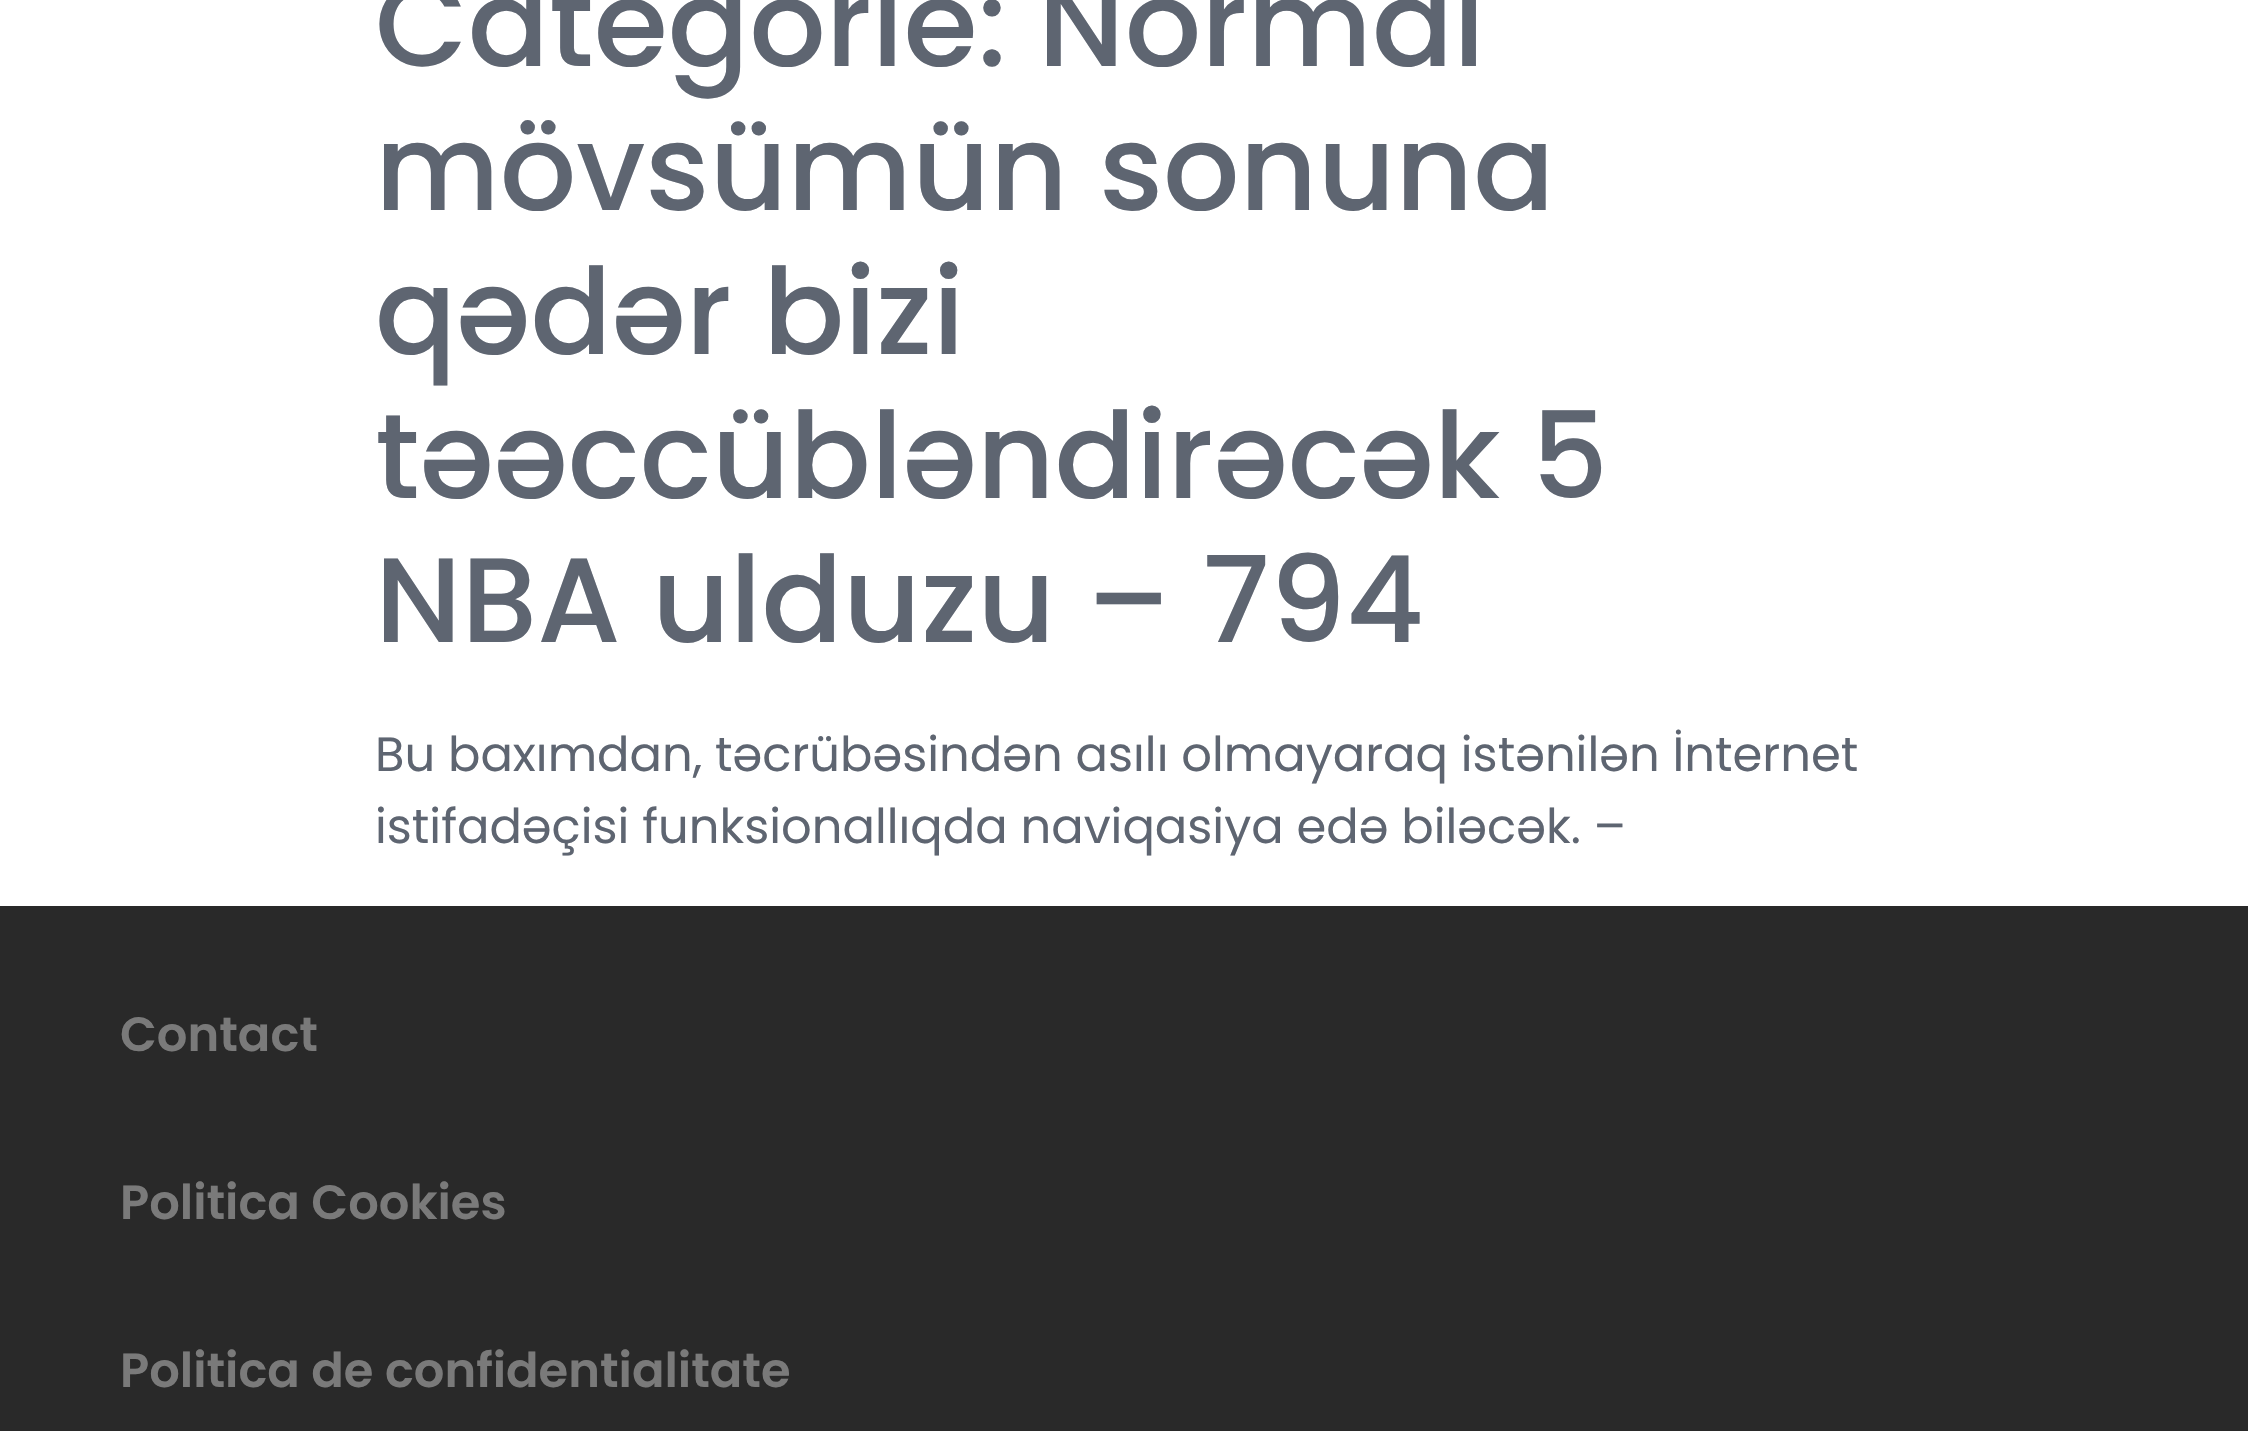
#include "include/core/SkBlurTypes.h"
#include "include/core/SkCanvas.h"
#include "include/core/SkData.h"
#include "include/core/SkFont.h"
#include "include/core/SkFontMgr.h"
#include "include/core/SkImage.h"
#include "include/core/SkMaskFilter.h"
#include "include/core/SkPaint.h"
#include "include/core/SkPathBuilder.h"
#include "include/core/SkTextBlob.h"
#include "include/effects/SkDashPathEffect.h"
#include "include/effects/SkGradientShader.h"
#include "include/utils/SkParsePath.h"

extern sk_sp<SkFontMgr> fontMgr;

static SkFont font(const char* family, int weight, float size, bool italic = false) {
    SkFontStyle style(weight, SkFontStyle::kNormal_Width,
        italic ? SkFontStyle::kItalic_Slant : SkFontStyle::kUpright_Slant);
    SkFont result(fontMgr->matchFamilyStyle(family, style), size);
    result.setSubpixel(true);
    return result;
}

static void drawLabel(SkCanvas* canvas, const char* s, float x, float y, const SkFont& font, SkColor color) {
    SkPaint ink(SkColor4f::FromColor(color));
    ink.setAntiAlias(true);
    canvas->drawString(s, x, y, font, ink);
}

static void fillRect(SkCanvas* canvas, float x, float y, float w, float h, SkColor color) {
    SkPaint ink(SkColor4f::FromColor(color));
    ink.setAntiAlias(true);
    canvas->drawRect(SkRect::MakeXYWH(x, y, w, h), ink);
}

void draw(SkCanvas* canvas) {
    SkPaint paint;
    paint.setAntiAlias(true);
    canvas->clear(0xFFFFFFFF);
    SkFont font1 = font("Poppins", 500, 120);
    drawLabel(canvas, "Categorie: Normal", 375, 66, font1, 0xFF5E6571);
    drawLabel(canvas, "mövsümün sonuna", 375, 210, font1, 0xFF5E6571);
    drawLabel(canvas, "qədər bizi", 375, 354, font1, 0xFF5E6571);
    drawLabel(canvas, "təəccübləndirəcək 5", 375, 498, font1, 0xFF5E6571);
    drawLabel(canvas, "NBA ulduzu – 794", 375, 642, font1, 0xFF5E6571);
    SkFont font2 = font("Poppins", 400, 48);
    drawLabel(canvas, "Bu baxımdan, təcrübəsindən asılı olmayaraq istənilən İnternet", 375, 771, font2, 0xFF5E6571);
    drawLabel(canvas, "istifadəçisi funksionallıqda naviqasiya edə biləcək. –", 375, 843, font2, 0xFF5E6571);
    fillRect(canvas, 0, 906, 2248, 525, 0xFF292929);
    SkFont font3 = font("Poppins", 600, 48);
    drawLabel(canvas, "Contact", 120, 1051, font3, 0xFF7A7A7A);
    drawLabel(canvas, "Politica Cookies", 120, 1219, font3, 0xFF7A7A7A);
    drawLabel(canvas, "Politica de confidentialitate", 120, 1387, font3, 0xFF7A7A7A);
}
